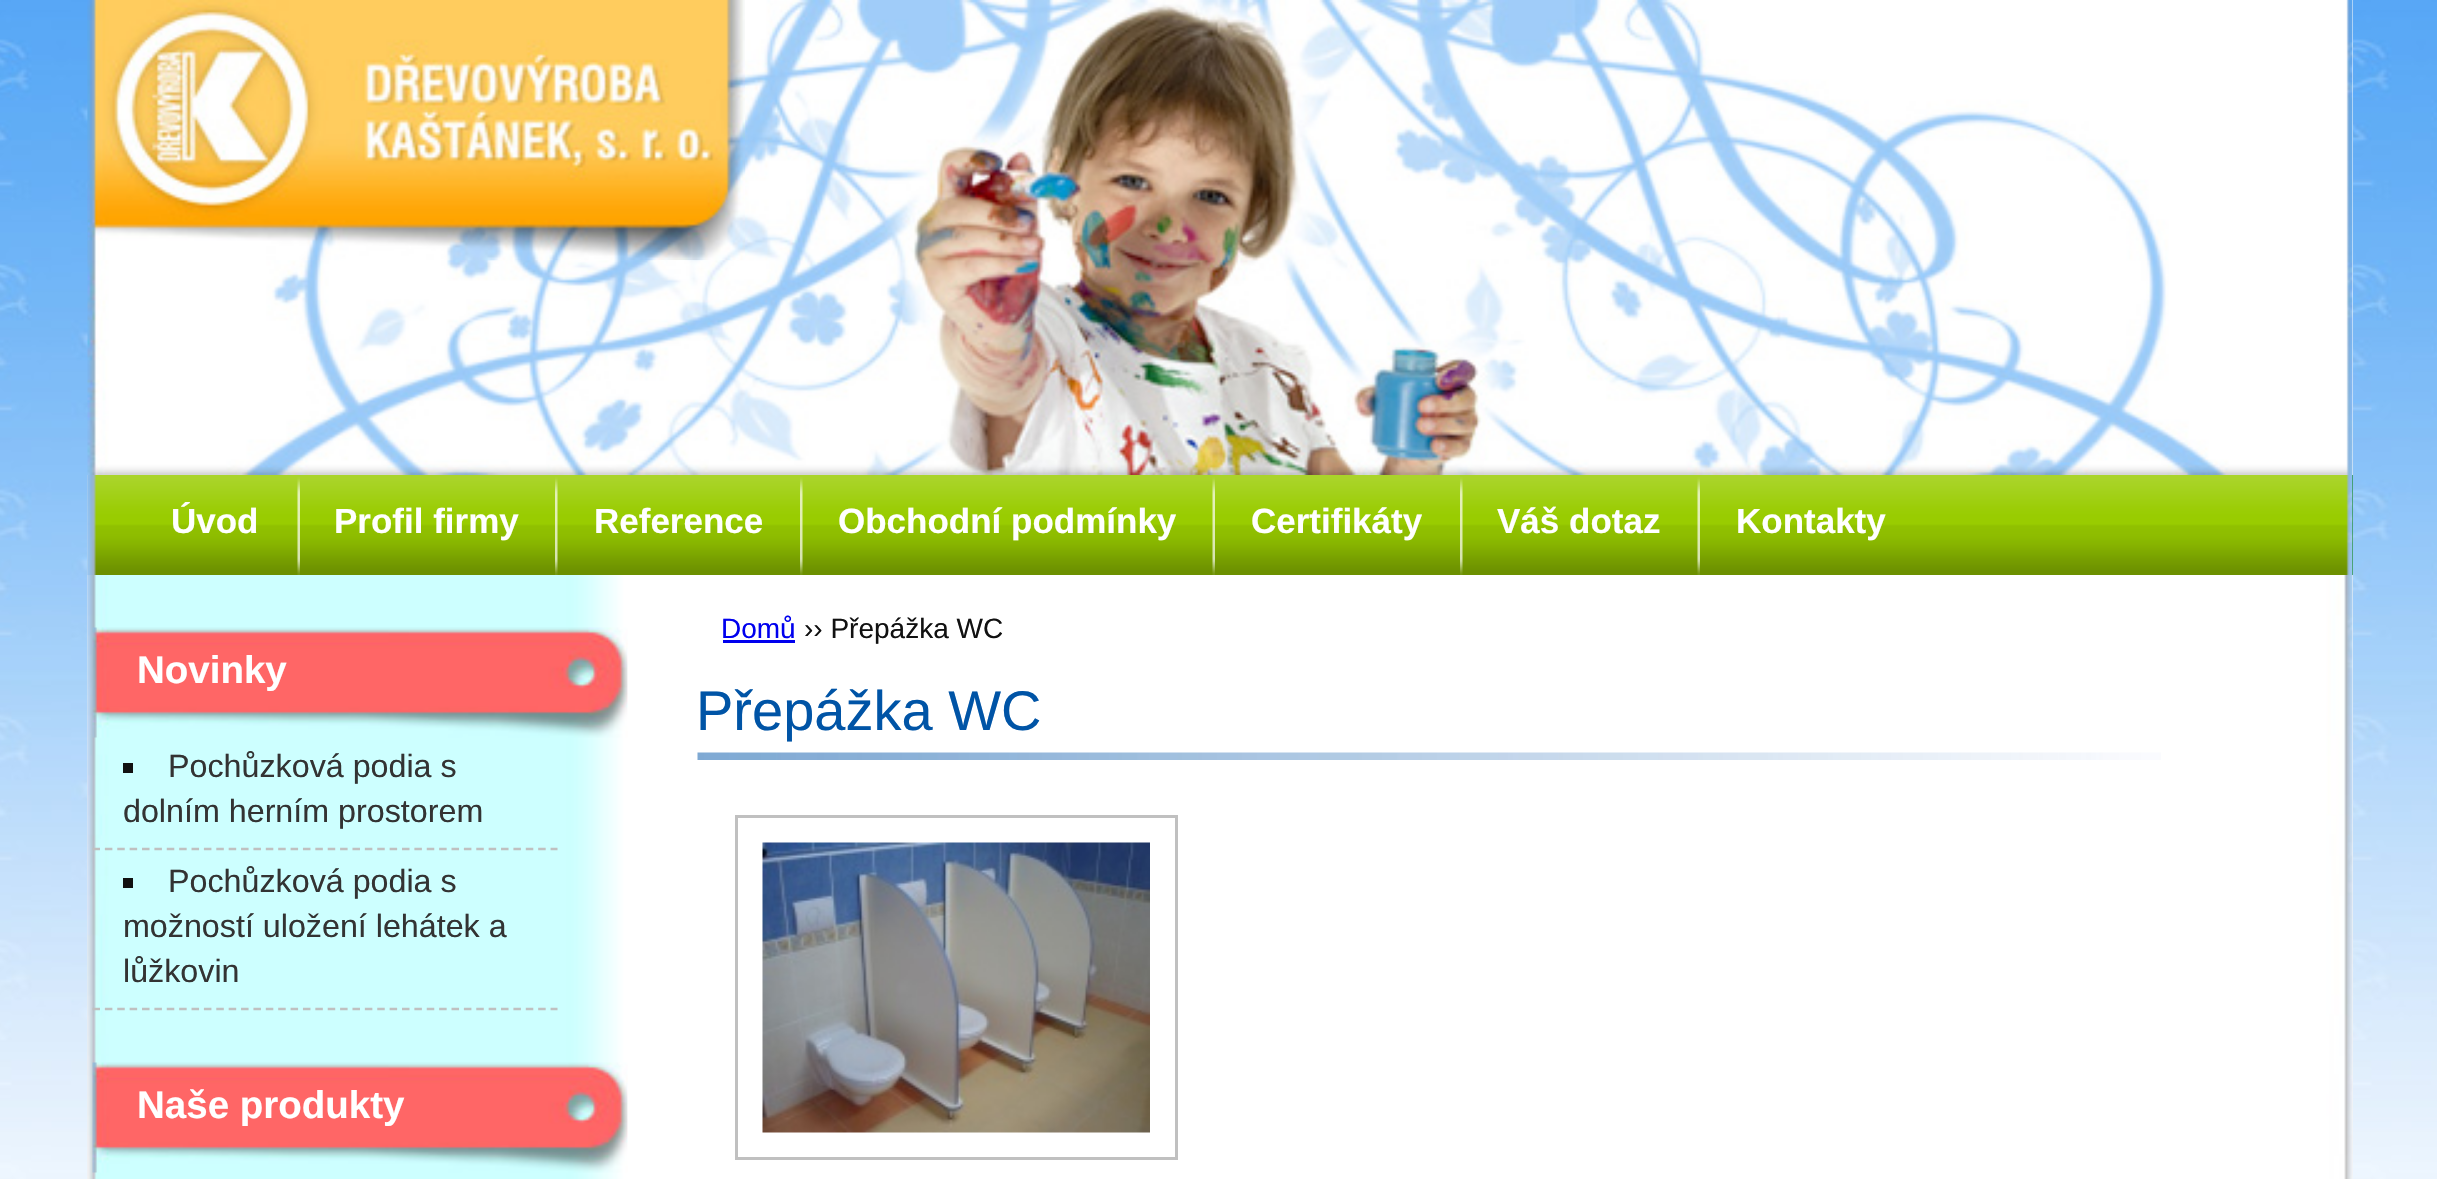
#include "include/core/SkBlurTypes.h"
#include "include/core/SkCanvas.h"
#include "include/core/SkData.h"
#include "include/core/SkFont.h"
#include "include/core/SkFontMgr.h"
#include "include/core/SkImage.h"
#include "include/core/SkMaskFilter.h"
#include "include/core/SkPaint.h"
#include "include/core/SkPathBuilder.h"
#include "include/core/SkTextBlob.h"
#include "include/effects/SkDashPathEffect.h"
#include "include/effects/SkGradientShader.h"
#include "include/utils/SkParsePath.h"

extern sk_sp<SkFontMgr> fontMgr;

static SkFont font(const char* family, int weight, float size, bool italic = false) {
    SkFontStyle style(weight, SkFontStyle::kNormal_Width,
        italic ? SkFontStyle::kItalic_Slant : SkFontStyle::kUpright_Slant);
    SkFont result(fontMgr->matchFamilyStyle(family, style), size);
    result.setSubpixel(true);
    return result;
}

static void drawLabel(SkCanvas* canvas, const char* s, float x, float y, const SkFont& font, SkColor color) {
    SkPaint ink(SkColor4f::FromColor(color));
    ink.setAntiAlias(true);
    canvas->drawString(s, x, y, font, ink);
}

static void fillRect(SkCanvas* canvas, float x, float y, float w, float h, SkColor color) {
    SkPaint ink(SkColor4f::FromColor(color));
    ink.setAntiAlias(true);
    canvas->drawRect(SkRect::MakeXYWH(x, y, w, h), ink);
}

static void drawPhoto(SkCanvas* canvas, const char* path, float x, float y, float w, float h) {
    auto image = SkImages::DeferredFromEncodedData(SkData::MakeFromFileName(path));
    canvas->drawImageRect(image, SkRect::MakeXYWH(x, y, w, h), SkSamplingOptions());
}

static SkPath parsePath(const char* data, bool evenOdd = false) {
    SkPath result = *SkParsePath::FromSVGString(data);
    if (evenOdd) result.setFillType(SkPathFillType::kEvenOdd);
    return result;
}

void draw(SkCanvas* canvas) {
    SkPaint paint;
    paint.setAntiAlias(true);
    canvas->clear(0xFFFFFFFF);
    drawPhoto(canvas, "assets/img1.png", 0, 0, 2437, 1179);
    fillRect(canvas, 2352, 0, 1, 1179, 0xFFFFFFFF);
    drawPhoto(canvas, "assets/img2.png", 87, 0, 2266, 475);
    drawPhoto(canvas, "assets/img3.png", 87, 0, 658, 260);
    drawPhoto(canvas, "assets/img4.png", 87, 475, 2266, 704);
    drawPhoto(canvas, "assets/img5.png", 87, 475, 2266, 704);
    fillRect(canvas, 2352, 475, 1, 100, 0xFF008000);
    drawPhoto(canvas, "assets/img6.png", 87, 475, 2266, 100);
    SkFont font1 = font("Liberation Sans", 700, 35);
    drawLabel(canvas, "Úvod", 171, 533, font1, 0xFFFFFFFF);
    drawPhoto(canvas, "assets/img7.png", 297, 477, 3, 98);
    drawLabel(canvas, "Profil firmy", 334, 533, font1, 0xFFFFFFFF);
    drawPhoto(canvas, "assets/img8.png", 555, 477, 3, 98);
    drawLabel(canvas, "Reference", 594, 533, font1, 0xFFFFFFFF);
    drawPhoto(canvas, "assets/img8.png", 800, 477, 3, 98);
    drawLabel(canvas, "Obchodní podmínky", 838, 533, font1, 0xFFFFFFFF);
    drawPhoto(canvas, "assets/img7.png", 1212, 477, 3, 98);
    drawLabel(canvas, "Certifikáty", 1251, 533, font1, 0xFFFFFFFF);
    drawPhoto(canvas, "assets/img8.png", 1460, 477, 3, 98);
    drawLabel(canvas, "Váš dotaz", 1497, 533, font1, 0xFFFFFFFF);
    drawPhoto(canvas, "assets/img7.png", 1697, 477, 3, 98);
    drawLabel(canvas, "Kontakty", 1736, 533, font1, 0xFFFFFFFF);
    drawPhoto(canvas, "assets/img9.png", 92, 627, 536, 111);
    SkFont font2 = font("Liberation Sans", 700, 38.5f);
    drawLabel(canvas, "Novinky", 137, 683, font2, 0xFFFFFFFF);
    paint.setStroke(true);
    paint.setStrokeWidth(2.5f);
    paint.setColor(0xFFC0C0C0);
    paint.setPathEffect(SkDashPathEffect::Make({{7.5f, 4.88f}}, 0));
    canvas->drawPath(parsePath("M92.5 849H557.5"), paint);
    paint.setPathEffect(nullptr);
    fillRect(canvas, 123, 763, 10, 10, 0xFF111111);
    SkFont font3 = font("Liberation Sans", 400, 32.25f);
    drawLabel(canvas, "Pochůzková podia s", 168, 777, font3, 0xFF333333);
    drawLabel(canvas, "dolním herním prostorem", 123, 822, font3, 0xFF333333);
    paint.setPathEffect(SkDashPathEffect::Make({{7.5f, 4.88f}}, 0));
    canvas->drawPath(parsePath("M92.5 1009H557.5"), paint);
    paint.setPathEffect(nullptr);
    fillRect(canvas, 123, 878, 10, 10, 0xFF111111);
    drawLabel(canvas, "Pochůzková podia s", 168, 892, font3, 0xFF333333);
    drawLabel(canvas, "možností uložení lehátek a", 123, 937, font3, 0xFF333333);
    drawLabel(canvas, "lůžkovin", 123, 982, font3, 0xFF333333);
    drawPhoto(canvas, "assets/img10.png", 92, 1062, 536, 111);
    drawLabel(canvas, "Naše produkty", 137, 1118, font2, 0xFFFFFFFF);
    SkFont font4 = font("Liberation Sans", 400, 28);
    drawLabel(canvas, "Domů", 721, 638, font4, 0xFF0000EE);
    fillRect(canvas, 723, 640, 72, 3, 0xFF0000EE);
    drawLabel(canvas, "›› Přepážka WC", 804, 638, font4, 0xFF111111);
    drawPhoto(canvas, "assets/img11.png", 697, 752, 1464, 8);
    SkFont font5 = font("Liberation Sans", 400, 56);
    drawLabel(canvas, "Přepážka WC", 696, 730, font5, 0xFF0054A6);
    paint.setStrokeWidth(3);
    canvas->drawRect(SkRect::MakeXYWH(736.5f, 816.5f, 440, 342), paint);
    drawPhoto(canvas, "assets/img12.png", 762, 842, 388, 291);
}
